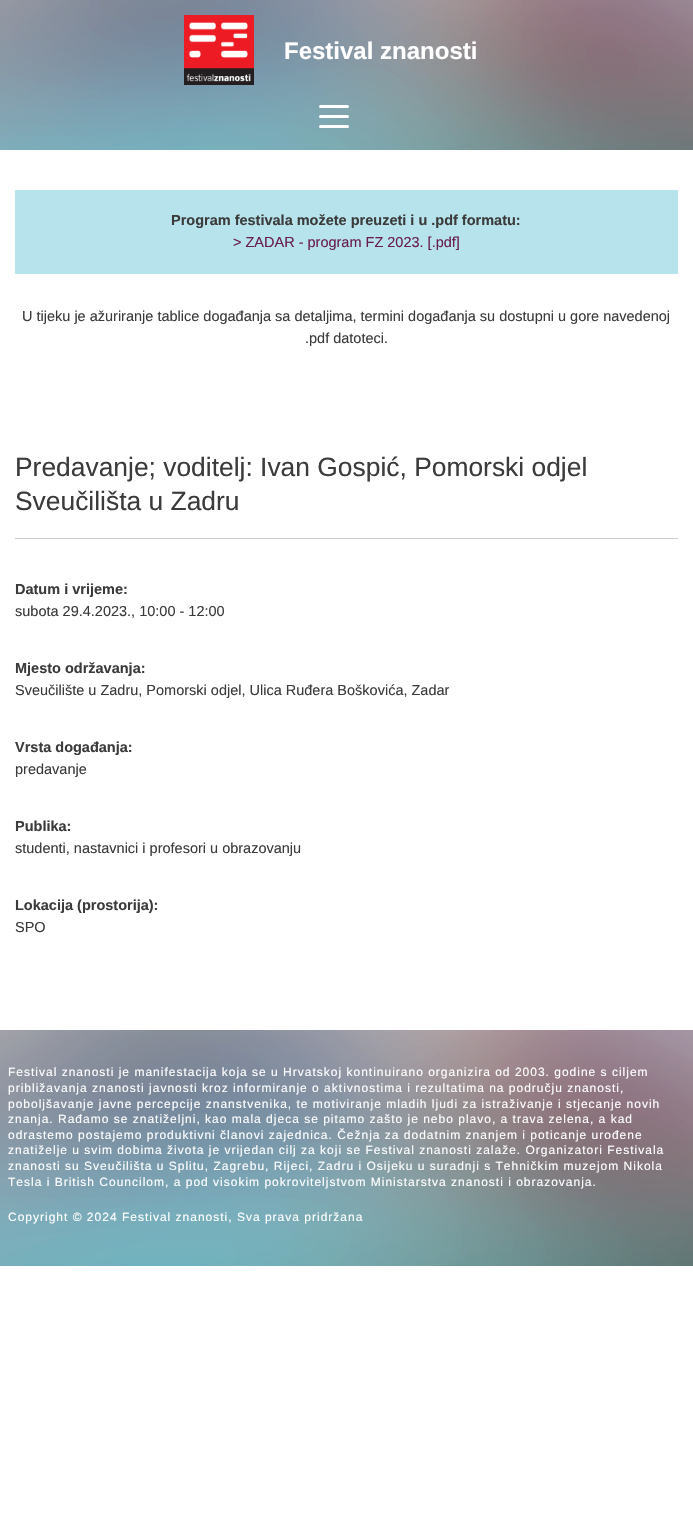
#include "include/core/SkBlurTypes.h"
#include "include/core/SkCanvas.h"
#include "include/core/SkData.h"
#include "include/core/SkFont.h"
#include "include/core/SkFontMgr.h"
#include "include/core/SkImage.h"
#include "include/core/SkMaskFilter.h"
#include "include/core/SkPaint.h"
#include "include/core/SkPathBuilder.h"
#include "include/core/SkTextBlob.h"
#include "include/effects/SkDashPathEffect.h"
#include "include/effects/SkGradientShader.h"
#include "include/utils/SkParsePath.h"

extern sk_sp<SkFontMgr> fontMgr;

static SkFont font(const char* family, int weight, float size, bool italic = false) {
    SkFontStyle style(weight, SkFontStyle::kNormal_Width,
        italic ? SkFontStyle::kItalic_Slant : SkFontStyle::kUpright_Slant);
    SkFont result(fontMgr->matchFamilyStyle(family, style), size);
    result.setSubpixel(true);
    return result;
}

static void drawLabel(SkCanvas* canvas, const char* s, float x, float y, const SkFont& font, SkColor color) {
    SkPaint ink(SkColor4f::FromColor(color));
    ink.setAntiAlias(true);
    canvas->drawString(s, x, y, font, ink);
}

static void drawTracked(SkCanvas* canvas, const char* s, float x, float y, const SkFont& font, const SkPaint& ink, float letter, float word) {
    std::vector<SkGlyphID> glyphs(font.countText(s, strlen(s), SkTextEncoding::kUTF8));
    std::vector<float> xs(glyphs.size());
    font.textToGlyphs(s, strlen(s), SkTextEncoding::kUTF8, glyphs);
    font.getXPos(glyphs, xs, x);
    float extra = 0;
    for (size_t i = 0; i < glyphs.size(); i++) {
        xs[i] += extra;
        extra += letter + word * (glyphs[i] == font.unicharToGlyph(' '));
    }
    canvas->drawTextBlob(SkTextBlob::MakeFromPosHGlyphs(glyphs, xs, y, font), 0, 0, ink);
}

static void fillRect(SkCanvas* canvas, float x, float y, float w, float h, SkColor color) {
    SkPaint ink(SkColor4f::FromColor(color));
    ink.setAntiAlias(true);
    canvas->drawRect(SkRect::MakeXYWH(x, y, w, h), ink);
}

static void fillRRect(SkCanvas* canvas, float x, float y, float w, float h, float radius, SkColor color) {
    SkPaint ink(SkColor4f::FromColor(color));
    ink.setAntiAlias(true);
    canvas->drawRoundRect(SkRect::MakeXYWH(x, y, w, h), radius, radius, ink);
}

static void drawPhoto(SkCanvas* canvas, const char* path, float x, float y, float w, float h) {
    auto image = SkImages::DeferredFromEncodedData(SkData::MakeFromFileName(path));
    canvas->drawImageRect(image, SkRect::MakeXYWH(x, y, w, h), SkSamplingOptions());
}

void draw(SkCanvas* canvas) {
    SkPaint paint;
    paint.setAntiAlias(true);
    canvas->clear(0xFFFFFFFF);
    drawPhoto(canvas, "assets/img1.png", 0, 0, 693, 150);
    drawPhoto(canvas, "assets/img2.png", 184, 15, 70, 70);
    SkFont font1 = font("Liberation Sans", 700, 24);
    drawLabel(canvas, "Festival znanosti", 284, 59, font1, 0xFFFFFFFF);
    fillRRect(canvas, 319, 105, 30, 3, 1.5f, 0xFFFFFFFF);
    fillRRect(canvas, 319, 115, 30, 3, 1.5f, 0xFFFFFFFF);
    fillRRect(canvas, 319, 125, 30, 3, 1.5f, 0xFFFFFFFF);
    fillRect(canvas, 15, 190, 663, 84, 0xFFB7E3EC);
    SkFont font2 = font("Liberation Sans", 700, 14.5f);
    drawLabel(canvas, "Program festivala možete preuzeti i u .pdf formatu:", 171, 225, font2, 0xFF3B3B3B);
    SkFont font3 = font("Liberation Sans", 400, 14.5f);
    drawLabel(canvas, "> ZADAR - program FZ 2023. [.pdf]", 233, 247, font3, 0xFF691C4F);
    drawLabel(canvas, "U tijeku je ažuriranje tablice događanja sa detaljima, termini događanja su dostupni u gore navedenoj", 22, 321, font3, 0xFF3B3B3B);
    drawLabel(canvas, ".pdf datoteci.", 305, 343, font3, 0xFF3B3B3B);
    fillRect(canvas, 15, 538, 663, 1, 0xFFCCCCCC);
    SkFont font4 = font("Liberation Sans", 400, 26.4f);
    drawLabel(canvas, "Predavanje; voditelj: Ivan Gospić, Pomorski odjel", 15, 476, font4, 0xFF3B3B3B);
    drawLabel(canvas, "Sveučilišta u Zadru", 15, 510, font4, 0xFF3B3B3B);
    drawLabel(canvas, "Datum i vrijeme:", 15, 594, font2, 0xFF3B3B3B);
    drawLabel(canvas, "subota 29.4.2023., 10:00 - 12:00", 15, 616, font3, 0xFF3B3B3B);
    drawLabel(canvas, "Mjesto održavanja:", 15, 673, font2, 0xFF3B3B3B);
    drawLabel(canvas, "Sveučilište u Zadru, Pomorski odjel, Ulica Ruđera Boškovića, Zadar", 15, 695, font3, 0xFF3B3B3B);
    drawLabel(canvas, "Vrsta događanja:", 15, 752, font2, 0xFF3B3B3B);
    drawLabel(canvas, "predavanje", 15, 774, font3, 0xFF3B3B3B);
    drawLabel(canvas, "Publika:", 15, 831, font2, 0xFF3B3B3B);
    drawLabel(canvas, "studenti, nastavnici i profesori u obrazovanju", 15, 853, font3, 0xFF3B3B3B);
    drawLabel(canvas, "Lokacija (prostorija):", 15, 910, font2, 0xFF3B3B3B);
    drawLabel(canvas, "SPO", 15, 932, font3, 0xFF3B3B3B);
    drawPhoto(canvas, "assets/img3.png", 0, 1030, 693, 236);
    SkFont font5 = font("Liberation Sans", 400, 12);
    paint.setColor(0xFFFFFFFF);
    drawTracked(canvas, "Festival znanosti je manifestacija koja se u Hrvatskoj kontinuirano organizira od 2003. godine s ciljem", 8, 1076, font5, paint, 1, 0);
    drawTracked(canvas, "približavanja znanosti javnosti kroz informiranje o aktivnostima i rezultatima na području znanosti,", 8, 1092, font5, paint, 1, 0);
    drawTracked(canvas, "poboljšavanje javne percepcije znanstvenika, te motiviranje mladih ljudi za istraživanje i stjecanje novih", 8, 1108, font5, paint, 1, 0);
    drawTracked(canvas, "znanja. Rađamo se znatiželjni, kao mala djeca se pitamo zašto je nebo plavo, a trava zelena, a kad", 8, 1123, font5, paint, 1, 0);
    drawTracked(canvas, "odrastemo postajemo produktivni članovi zajednica. Čežnja za dodatnim znanjem i poticanje urođene", 8, 1139, font5, paint, 1, 0);
    drawTracked(canvas, "znatiželje u svim dobima života je vrijedan cilj za koji se Festival znanosti zalaže. Organizatori Festivala", 8, 1154, font5, paint, 1, 0);
    drawTracked(canvas, "znanosti su Sveučilišta u Splitu, Zagrebu, Rijeci, Zadru i Osijeku u suradnji s Tehničkim muzejom Nikola", 8, 1170, font5, paint, 1, 0);
    drawTracked(canvas, "Tesla i British Councilom, a pod visokim pokroviteljstvom Ministarstva znanosti i obrazovanja.", 8, 1186, font5, paint, 1, 0);
    drawTracked(canvas, "Copyright © 2024 Festival znanosti, Sva prava pridržana", 8, 1221, font5, paint, 1, 0);
}
